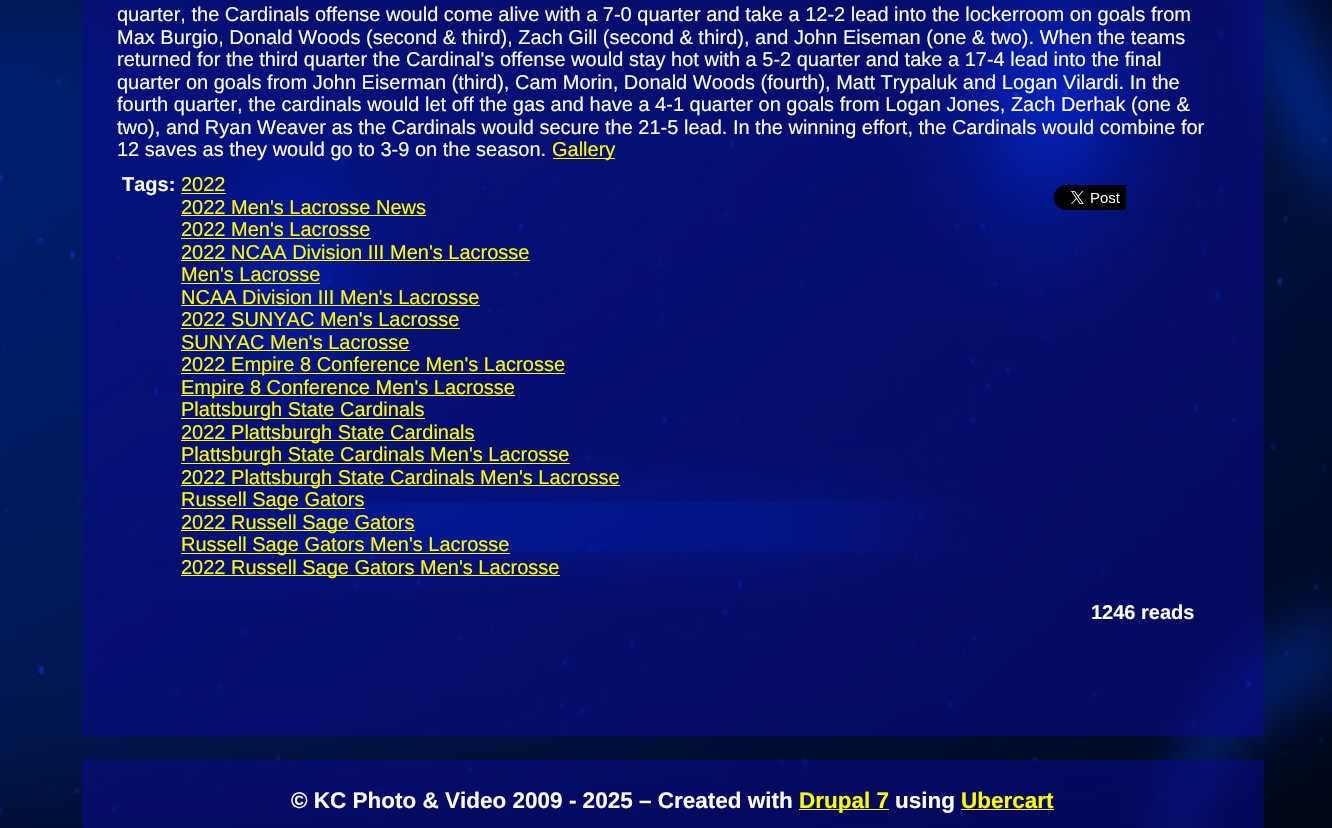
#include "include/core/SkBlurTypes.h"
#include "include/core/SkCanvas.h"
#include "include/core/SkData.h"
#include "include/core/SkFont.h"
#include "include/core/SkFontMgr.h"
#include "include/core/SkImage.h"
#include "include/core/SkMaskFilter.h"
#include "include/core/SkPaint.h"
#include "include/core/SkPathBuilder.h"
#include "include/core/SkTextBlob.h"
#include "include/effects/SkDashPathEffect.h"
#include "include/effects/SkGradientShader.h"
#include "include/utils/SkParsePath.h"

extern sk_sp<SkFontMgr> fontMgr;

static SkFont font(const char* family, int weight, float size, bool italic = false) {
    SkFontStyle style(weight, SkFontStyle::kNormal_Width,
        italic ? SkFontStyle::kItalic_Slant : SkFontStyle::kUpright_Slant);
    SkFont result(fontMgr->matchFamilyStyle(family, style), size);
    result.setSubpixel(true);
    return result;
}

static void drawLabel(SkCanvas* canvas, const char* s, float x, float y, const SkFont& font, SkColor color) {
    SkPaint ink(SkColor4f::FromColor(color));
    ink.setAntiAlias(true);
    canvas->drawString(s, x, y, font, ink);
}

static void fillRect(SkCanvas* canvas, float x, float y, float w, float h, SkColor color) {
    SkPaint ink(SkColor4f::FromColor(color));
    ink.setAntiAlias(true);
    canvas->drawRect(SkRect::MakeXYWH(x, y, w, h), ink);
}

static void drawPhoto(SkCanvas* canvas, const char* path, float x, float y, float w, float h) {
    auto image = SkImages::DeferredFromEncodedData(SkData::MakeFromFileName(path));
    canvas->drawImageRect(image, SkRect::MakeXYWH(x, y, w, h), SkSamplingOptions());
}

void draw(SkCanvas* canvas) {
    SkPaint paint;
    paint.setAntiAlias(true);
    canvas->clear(0xFFFFFFFF);
    drawPhoto(canvas, "assets/img1.png", 0, 0, 1332, 828);
    drawPhoto(canvas, "assets/img2.png", 82, 0, 1182, 737);
    SkFont font1 = font("Liberation Sans", 400, 20);
    drawLabel(canvas, "quarter, the Cardinals offense would come alive with a 7-0 quarter and take a 12-2 lead into the lockerroom on goals from", 117, 21, font1, 0xFFFFFFFF);
    drawLabel(canvas, "Max Burgio, Donald Woods (second & third), Zach Gill (second & third), and John Eiseman (one & two). When the teams", 117, 44, font1, 0xFFFFFFFF);
    drawLabel(canvas, "returned for the third quarter the Cardinal's offense would stay hot with a 5-2 quarter and take a 17-4 lead into the final", 117, 66, font1, 0xFFFFFFFF);
    drawLabel(canvas, "quarter on goals from John Eiserman (third), Cam Morin, Donald Woods (fourth), Matt Trypaluk and Logan Vilardi. In the", 117, 89, font1, 0xFFFFFFFF);
    drawLabel(canvas, "fourth quarter, the cardinals would let off the gas and have a 4-1 quarter on goals from Logan Jones, Zach Derhak (one &", 117, 111, font1, 0xFFFFFFFF);
    drawLabel(canvas, "two), and Ryan Weaver as the Cardinals would secure the 21-5 lead. In the winning effort, the Cardinals would combine for", 117, 134, font1, 0xFFFFFFFF);
    drawLabel(canvas, "12 saves as they would go to 3-9 on the season.", 117, 156, font1, 0xFFFFFFFF);
    fillRect(canvas, 553, 158, 62, 1, 0xFFFFFF00);
    drawLabel(canvas, "Gallery", 552, 156, font1, 0xFFFFFF00);
    SkFont font2 = font("Liberation Sans", 700, 20);
    drawLabel(canvas, "Tags:", 122, 191, font2, 0xFFFFFFFF);
    drawLabel(canvas, "2022", 181, 191, font1, 0xFFFFFF00);
    fillRect(canvas, 181, 193, 45, 1, 0xFFFFFF00);
    drawLabel(canvas, "2022 Men's Lacrosse News", 181, 214, font1, 0xFFFFFF00);
    fillRect(canvas, 181, 215, 245, 1, 0xFFFFFF00);
    drawLabel(canvas, "2022 Men's Lacrosse", 181, 236, font1, 0xFFFFFF00);
    fillRect(canvas, 181, 238, 190, 1, 0xFFFFFF00);
    drawLabel(canvas, "2022 NCAA Division III Men's Lacrosse", 181, 259, font1, 0xFFFFFF00);
    fillRect(canvas, 181, 260, 349, 1, 0xFFFFFF00);
    drawLabel(canvas, "Men's Lacrosse", 181, 281, font1, 0xFFFFFF00);
    fillRect(canvas, 181, 283, 139, 1, 0xFFFFFF00);
    drawLabel(canvas, "NCAA Division III Men's Lacrosse", 181, 304, font1, 0xFFFFFF00);
    fillRect(canvas, 181, 305, 299, 1, 0xFFFFFF00);
    drawLabel(canvas, "2022 SUNYAC Men's Lacrosse", 181, 326, font1, 0xFFFFFF00);
    fillRect(canvas, 181, 328, 279, 1, 0xFFFFFF00);
    drawLabel(canvas, "SUNYAC Men's Lacrosse", 181, 349, font1, 0xFFFFFF00);
    fillRect(canvas, 181, 350, 229, 1, 0xFFFFFF00);
    fillRect(canvas, 181, 373, 384, 1, 0xFFFFFF00);
    drawLabel(canvas, "2022 Empire 8 Conference Men's Lacrosse", 181, 371, font1, 0xFFFFFF00);
    fillRect(canvas, 181, 395, 334, 1, 0xFFFFFF00);
    drawLabel(canvas, "Empire 8 Conference Men's Lacrosse", 181, 394, font1, 0xFFFFFF00);
    fillRect(canvas, 181, 418, 244, 1, 0xFFFFFF00);
    drawLabel(canvas, "Plattsburgh State Cardinals", 181, 416, font1, 0xFFFFFF00);
    fillRect(canvas, 181, 440, 294, 1, 0xFFFFFF00);
    drawLabel(canvas, "2022 Plattsburgh State Cardinals", 181, 439, font1, 0xFFFFFF00);
    fillRect(canvas, 181, 463, 389, 1, 0xFFFFFF00);
    drawLabel(canvas, "Plattsburgh State Cardinals Men's Lacrosse", 181, 461, font1, 0xFFFFFF00);
    fillRect(canvas, 181, 485, 439, 1, 0xFFFFFF00);
    drawLabel(canvas, "2022 Plattsburgh State Cardinals Men's Lacrosse", 181, 484, font1, 0xFFFFFF00);
    fillRect(canvas, 181, 508, 184, 1, 0xFFFFFF00);
    drawLabel(canvas, "Russell Sage Gators", 181, 506, font1, 0xFFFFFF00);
    fillRect(canvas, 181, 530, 234, 1, 0xFFFFFF00);
    drawLabel(canvas, "2022 Russell Sage Gators", 181, 529, font1, 0xFFFFFF00);
    fillRect(canvas, 181, 553, 329, 1, 0xFFFFFF00);
    drawLabel(canvas, "Russell Sage Gators Men's Lacrosse", 181, 551, font1, 0xFFFFFF00);
    fillRect(canvas, 181, 575, 379, 1, 0xFFFFFF00);
    drawLabel(canvas, "2022 Russell Sage Gators Men's Lacrosse", 181, 574, font1, 0xFFFFFF00);
    drawPhoto(canvas, "assets/img3.png", 1054, 185, 73, 25);
    drawLabel(canvas, "1246 reads", 1091, 619, font2, 0xFFFFFFFF);
    drawPhoto(canvas, "assets/img4.png", 82, 760, 1182, 68);
    SkFont font3 = font("Liberation Sans", 700, 22.5f);
    drawLabel(canvas, "© KC Photo & Video 2009 - 2025 – Created with", 291, 808, font3, 0xFFFFFFFF);
    fillRect(canvas, 799, 809, 90, 1, 0xFFFFFF00);
    drawLabel(canvas, "Drupal 7", 799, 808, font3, 0xFFFFFF00);
    drawLabel(canvas, "using", 895, 808, font3, 0xFFFFFFFF);
    drawLabel(canvas, "Ubercart", 961, 808, font3, 0xFFFFFF00);
    fillRect(canvas, 961, 809, 93, 1, 0xFFFFFF00);
}
